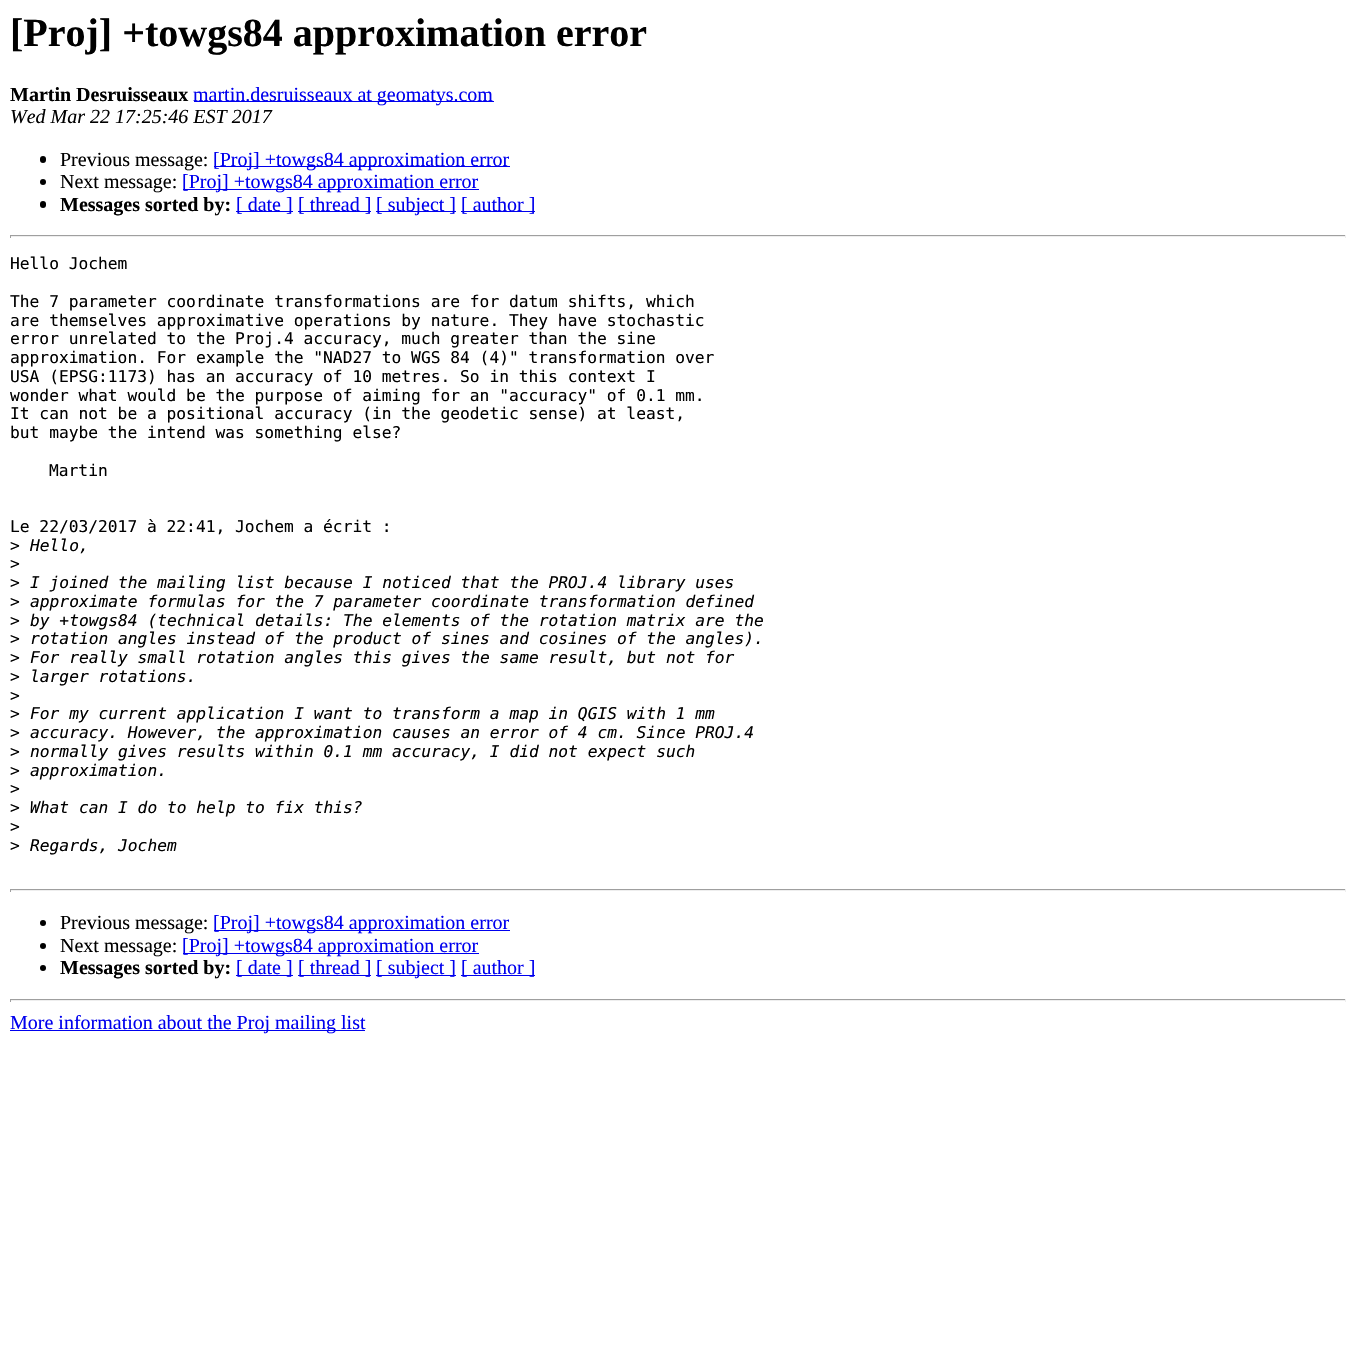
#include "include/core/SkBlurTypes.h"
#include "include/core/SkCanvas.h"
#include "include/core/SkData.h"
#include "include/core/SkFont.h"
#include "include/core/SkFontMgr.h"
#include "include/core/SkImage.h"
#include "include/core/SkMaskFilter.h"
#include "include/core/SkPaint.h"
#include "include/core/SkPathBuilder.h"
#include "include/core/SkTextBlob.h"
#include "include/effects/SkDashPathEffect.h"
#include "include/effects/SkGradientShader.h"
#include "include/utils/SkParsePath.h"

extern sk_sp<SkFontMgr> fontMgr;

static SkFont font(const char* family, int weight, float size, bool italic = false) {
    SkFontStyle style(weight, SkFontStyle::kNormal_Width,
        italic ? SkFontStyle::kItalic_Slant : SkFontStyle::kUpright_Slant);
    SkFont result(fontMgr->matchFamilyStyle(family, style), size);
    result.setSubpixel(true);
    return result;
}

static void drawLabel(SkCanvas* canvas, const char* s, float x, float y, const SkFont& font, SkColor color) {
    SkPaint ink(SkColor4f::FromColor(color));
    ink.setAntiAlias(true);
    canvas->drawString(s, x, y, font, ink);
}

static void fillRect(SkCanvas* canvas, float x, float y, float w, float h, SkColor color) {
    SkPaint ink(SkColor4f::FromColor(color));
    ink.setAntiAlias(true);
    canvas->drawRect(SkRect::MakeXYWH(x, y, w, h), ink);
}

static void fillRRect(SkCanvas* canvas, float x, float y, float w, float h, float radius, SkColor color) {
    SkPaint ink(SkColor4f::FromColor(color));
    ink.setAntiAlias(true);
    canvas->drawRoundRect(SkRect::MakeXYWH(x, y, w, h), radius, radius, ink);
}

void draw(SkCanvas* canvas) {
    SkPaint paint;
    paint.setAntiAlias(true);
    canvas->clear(0xFFFFFFFF);
    SkFont font1 = font("Liberation Serif", 700, 40);
    drawLabel(canvas, "[Proj] +towgs84 approximation error", 10, 46, font1, 0xFF000000);
    SkFont font2 = font("Liberation Serif", 700, 20);
    drawLabel(canvas, "Martin Desruisseaux", 10, 101, font2, 0xFF000000);
    fillRect(canvas, 194, 101, 300, 1, 0xFF0000EE);
    SkFont font3 = font("Liberation Serif", 400, 20);
    drawLabel(canvas, "martin.desruisseaux at geomatys.com", 193, 101, font3, 0xFF0000EE);
    SkFont font4 = font("Liberation Serif", 400, 20, true);
    drawLabel(canvas, "Wed Mar 22 17:25:46 EST 2017", 10, 123, font4, 0xFF000000);
    fillRRect(canvas, 40, 156, 6, 7, 3, 0xFF000000);
    drawLabel(canvas, "Previous message:", 60, 166, font3, 0xFF000000);
    fillRect(canvas, 214, 166, 296, 1, 0xFF0000EE);
    drawLabel(canvas, "[Proj] +towgs84 approximation error", 213, 166, font3, 0xFF0000EE);
    paint.setColor(0xFF000000);
    canvas->drawCircle(43, 182, 3, paint);
    drawLabel(canvas, "Next message:", 60, 188, font3, 0xFF000000);
    fillRect(canvas, 183, 189, 296, 1, 0xFF0000EE);
    drawLabel(canvas, "[Proj] +towgs84 approximation error", 182, 188, font3, 0xFF0000EE);
    fillRRect(canvas, 40, 201, 6, 7, 3, 0xFF000000);
    drawLabel(canvas, "Messages sorted by:", 60, 211, font2, 0xFF000000);
    fillRect(canvas, 236, 211, 57, 1, 0xFF0000EE);
    drawLabel(canvas, "[ date ]", 236, 211, font3, 0xFF0000EE);
    fillRect(canvas, 298, 211, 73, 1, 0xFF0000EE);
    drawLabel(canvas, "[ thread ]", 298, 211, font3, 0xFF0000EE);
    fillRect(canvas, 376, 211, 80, 1, 0xFF0000EE);
    drawLabel(canvas, "[ subject ]", 376, 211, font3, 0xFF0000EE);
    fillRect(canvas, 461, 211, 74, 1, 0xFF0000EE);
    drawLabel(canvas, "[ author ]", 461, 211, font3, 0xFF0000EE);
    fillRect(canvas, 10, 235, 1336, 1, 0xFF9F9F9F);
    fillRect(canvas, 1345, 235, 1, 3, 0xFFEEEEEE);
    fillRect(canvas, 10, 236, 1336, 1, 0xFFEEEEEE);
    fillRect(canvas, 10, 235, 1, 3, 0xFF9F9F9F);
    SkFont font5 = font("DejaVu Sans Mono", 400, 16.25f);
    drawLabel(canvas, "Hello Jochem", 10, 269, font5, 0xFF000000);
    drawLabel(canvas, "The 7 parameter coordinate transformations are for datum shifts, which", 10, 307, font5, 0xFF000000);
    drawLabel(canvas, "are themselves approximative operations by nature. They have stochastic", 10, 326, font5, 0xFF000000);
    drawLabel(canvas, "error unrelated to the Proj.4 accuracy, much greater than the sine", 10, 344, font5, 0xFF000000);
    drawLabel(canvas, "approximation. For example the \"NAD27 to WGS 84 (4)\" transformation over", 10, 363, font5, 0xFF000000);
    drawLabel(canvas, "USA (EPSG:1173) has an accuracy of 10 metres. So in this context I", 10, 382, font5, 0xFF000000);
    drawLabel(canvas, "wonder what would be the purpose of aiming for an \"accuracy\" of 0.1 mm.", 10, 401, font5, 0xFF000000);
    drawLabel(canvas, "It can not be a positional accuracy (in the geodetic sense) at least,", 10, 419, font5, 0xFF000000);
    drawLabel(canvas, "but maybe the intend was something else?", 10, 438, font5, 0xFF000000);
    drawLabel(canvas, "Martin", 49, 476, font5, 0xFF000000);
    drawLabel(canvas, "Le 22/03/2017 à 22:41, Jochem a écrit :", 10, 532, font5, 0xFF000000);
    drawLabel(canvas, ">", 10, 551, font5, 0xFF000000);
    SkFont font6 = font("DejaVu Sans Mono", 400, 16.25f, true);
    drawLabel(canvas, "Hello,", 30, 551, font6, 0xFF000000);
    drawLabel(canvas, ">", 10, 569, font5, 0xFF000000);
    drawLabel(canvas, ">", 10, 588, font5, 0xFF000000);
    drawLabel(canvas, "I joined the mailing list because I noticed that the PROJ.4 library uses", 30, 588, font6, 0xFF000000);
    drawLabel(canvas, ">", 10, 607, font5, 0xFF000000);
    drawLabel(canvas, "approximate formulas for the 7 parameter coordinate transformation defined", 30, 607, font6, 0xFF000000);
    drawLabel(canvas, ">", 10, 626, font5, 0xFF000000);
    drawLabel(canvas, "by +towgs84 (technical details: The elements of the rotation matrix are the", 30, 626, font6, 0xFF000000);
    drawLabel(canvas, ">", 10, 644, font5, 0xFF000000);
    drawLabel(canvas, "rotation angles instead of the product of sines and cosines of the angles).", 30, 644, font6, 0xFF000000);
    drawLabel(canvas, ">", 10, 663, font5, 0xFF000000);
    drawLabel(canvas, "For really small rotation angles this gives the same result, but not for", 30, 663, font6, 0xFF000000);
    drawLabel(canvas, ">", 10, 682, font5, 0xFF000000);
    drawLabel(canvas, "larger rotations.", 30, 682, font6, 0xFF000000);
    drawLabel(canvas, ">", 10, 701, font5, 0xFF000000);
    drawLabel(canvas, ">", 10, 719, font5, 0xFF000000);
    drawLabel(canvas, "For my current application I want to transform a map in QGIS with 1 mm", 30, 719, font6, 0xFF000000);
    drawLabel(canvas, ">", 10, 738, font5, 0xFF000000);
    drawLabel(canvas, "accuracy. However, the approximation causes an error of 4 cm. Since PROJ.4", 30, 738, font6, 0xFF000000);
    drawLabel(canvas, ">", 10, 757, font5, 0xFF000000);
    drawLabel(canvas, "normally gives results within 0.1 mm accuracy, I did not expect such", 30, 757, font6, 0xFF000000);
    drawLabel(canvas, ">", 10, 776, font5, 0xFF000000);
    drawLabel(canvas, "approximation.", 30, 776, font6, 0xFF000000);
    drawLabel(canvas, ">", 10, 794, font5, 0xFF000000);
    drawLabel(canvas, ">", 10, 813, font5, 0xFF000000);
    drawLabel(canvas, "What can I do to help to fix this?", 30, 813, font6, 0xFF000000);
    drawLabel(canvas, ">", 10, 832, font5, 0xFF000000);
    drawLabel(canvas, ">", 10, 851, font5, 0xFF000000);
    drawLabel(canvas, "Regards, Jochem", 30, 851, font6, 0xFF000000);
    fillRect(canvas, 10, 889, 1336, 1, 0xFF9F9F9F);
    fillRect(canvas, 1345, 889, 1, 3, 0xFFEEEEEE);
    fillRect(canvas, 10, 890, 1336, 1, 0xFFEEEEEE);
    fillRect(canvas, 10, 889, 1, 3, 0xFF9F9F9F);
    canvas->drawCircle(43, 923, 3, paint);
    drawLabel(canvas, "Previous message:", 60, 929, font3, 0xFF000000);
    fillRect(canvas, 214, 930, 296, 1, 0xFF0000EE);
    drawLabel(canvas, "[Proj] +towgs84 approximation error", 213, 929, font3, 0xFF0000EE);
    canvas->drawCircle(43, 946, 3, paint);
    drawLabel(canvas, "Next message:", 60, 952, font3, 0xFF000000);
    fillRect(canvas, 183, 953, 296, 1, 0xFF0000EE);
    drawLabel(canvas, "[Proj] +towgs84 approximation error", 182, 952, font3, 0xFF0000EE);
    canvas->drawCircle(43, 968, 3, paint);
    drawLabel(canvas, "Messages sorted by:", 60, 974, font2, 0xFF000000);
    fillRect(canvas, 236, 975, 57, 1, 0xFF0000EE);
    drawLabel(canvas, "[ date ]", 236, 974, font3, 0xFF0000EE);
    fillRect(canvas, 298, 975, 73, 1, 0xFF0000EE);
    drawLabel(canvas, "[ thread ]", 298, 974, font3, 0xFF0000EE);
    fillRect(canvas, 376, 975, 80, 1, 0xFF0000EE);
    drawLabel(canvas, "[ subject ]", 376, 974, font3, 0xFF0000EE);
    fillRect(canvas, 461, 975, 74, 1, 0xFF0000EE);
    drawLabel(canvas, "[ author ]", 461, 974, font3, 0xFF0000EE);
    fillRect(canvas, 10, 999, 1336, 1, 0xFF9F9F9F);
    fillRect(canvas, 1345, 999, 1, 3, 0xFFEEEEEE);
    fillRect(canvas, 10, 1000, 1336, 1, 0xFFEEEEEE);
    fillRect(canvas, 10, 999, 1, 3, 0xFF9F9F9F);
    fillRect(canvas, 10, 1030, 355, 1, 0xFF0000EE);
    drawLabel(canvas, "More information about the Proj mailing list", 10, 1029, font3, 0xFF0000EE);
}
